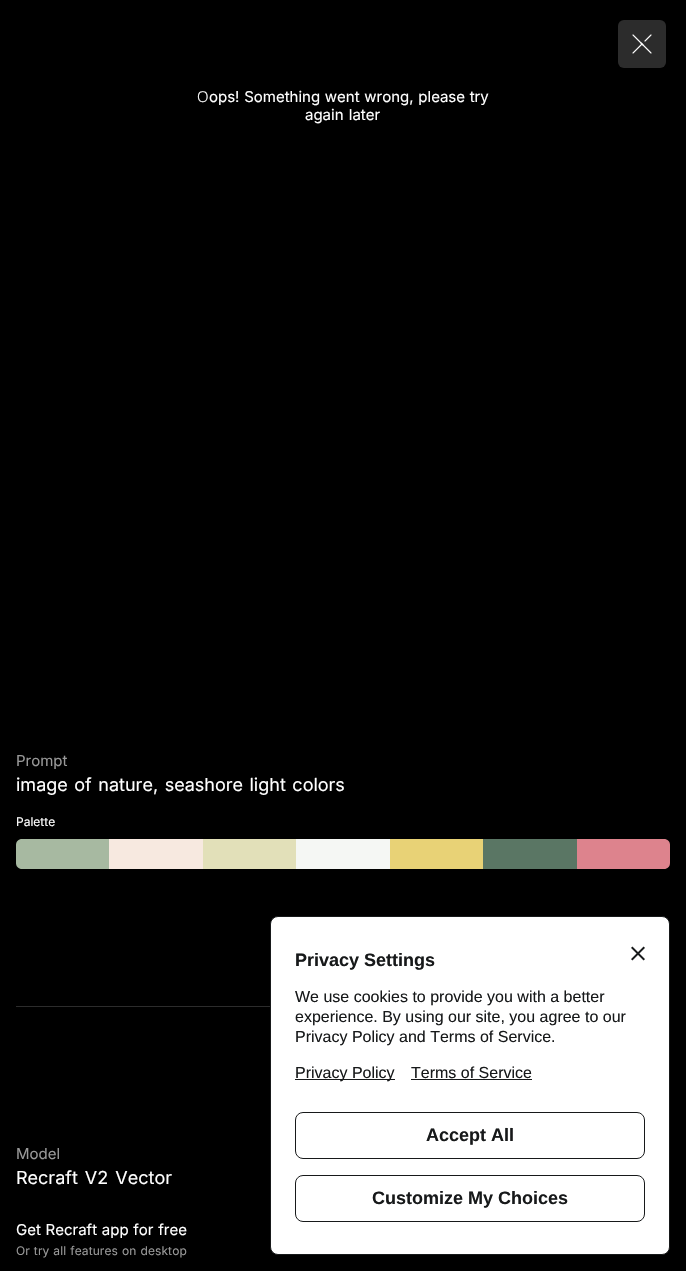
#include "include/core/SkBlurTypes.h"
#include "include/core/SkCanvas.h"
#include "include/core/SkData.h"
#include "include/core/SkFont.h"
#include "include/core/SkFontMgr.h"
#include "include/core/SkImage.h"
#include "include/core/SkMaskFilter.h"
#include "include/core/SkPaint.h"
#include "include/core/SkPathBuilder.h"
#include "include/core/SkTextBlob.h"
#include "include/effects/SkDashPathEffect.h"
#include "include/effects/SkGradientShader.h"
#include "include/utils/SkParsePath.h"

extern sk_sp<SkFontMgr> fontMgr;

static SkFont font(const char* family, int weight, float size, bool italic = false) {
    SkFontStyle style(weight, SkFontStyle::kNormal_Width,
        italic ? SkFontStyle::kItalic_Slant : SkFontStyle::kUpright_Slant);
    SkFont result(fontMgr->matchFamilyStyle(family, style), size);
    result.setSubpixel(true);
    return result;
}

static void drawLabel(SkCanvas* canvas, const char* s, float x, float y, const SkFont& font, SkColor color) {
    SkPaint ink(SkColor4f::FromColor(color));
    ink.setAntiAlias(true);
    canvas->drawString(s, x, y, font, ink);
}

static void drawTracked(SkCanvas* canvas, const char* s, float x, float y, const SkFont& font, const SkPaint& ink, float letter, float word) {
    std::vector<SkGlyphID> glyphs(font.countText(s, strlen(s), SkTextEncoding::kUTF8));
    std::vector<float> xs(glyphs.size());
    font.textToGlyphs(s, strlen(s), SkTextEncoding::kUTF8, glyphs);
    font.getXPos(glyphs, xs, x);
    float extra = 0;
    for (size_t i = 0; i < glyphs.size(); i++) {
        xs[i] += extra;
        extra += letter + word * (glyphs[i] == font.unicharToGlyph(' '));
    }
    canvas->drawTextBlob(SkTextBlob::MakeFromPosHGlyphs(glyphs, xs, y, font), 0, 0, ink);
}

static void fillRect(SkCanvas* canvas, float x, float y, float w, float h, SkColor color) {
    SkPaint ink(SkColor4f::FromColor(color));
    ink.setAntiAlias(true);
    canvas->drawRect(SkRect::MakeXYWH(x, y, w, h), ink);
}

static void fillRRect(SkCanvas* canvas, float x, float y, float w, float h, float radius, SkColor color) {
    SkPaint ink(SkColor4f::FromColor(color));
    ink.setAntiAlias(true);
    canvas->drawRoundRect(SkRect::MakeXYWH(x, y, w, h), radius, radius, ink);
}

static void drawPhoto(SkCanvas* canvas, const char* path, float x, float y, float w, float h) {
    auto image = SkImages::DeferredFromEncodedData(SkData::MakeFromFileName(path));
    canvas->drawImageRect(image, SkRect::MakeXYWH(x, y, w, h), SkSamplingOptions());
}

static SkPath parsePath(const char* data, bool evenOdd = false) {
    SkPath result = *SkParsePath::FromSVGString(data);
    if (evenOdd) result.setFillType(SkPathFillType::kEvenOdd);
    return result;
}

void draw(SkCanvas* canvas) {
    SkPaint paint;
    paint.setAntiAlias(true);
    canvas->clear(0xFF000000);
    SkFont font1 = font("Noto Sans", 300, 15);
    drawLabel(canvas, "O", 197, 102, font1, 0xFFFFFFFF);
    SkFont font2 = font("Inter", 400, 15);
    paint.setColor(0xFFFFFFFF);
    drawTracked(canvas, "ops! Something went wrong, please try", 209, 102, font2, paint, 0, 0.5f);
    drawTracked(canvas, "again later", 305, 120, font2, paint, 0, 1);
    fillRRect(canvas, 618, 20, 48, 48, 6, 0xFF2C2C2C);
    drawPhoto(canvas, "assets/img1.png", 632, 34, 20, 20);
    drawLabel(canvas, "Prompt", 16, 766, font2, 0xFF999999);
    SkFont font3 = font("Inter", 400, 18);
    drawTracked(canvas, "image of nature, seashore light colors", 16, 791, font3, paint, 0, 1.5f);
    SkFont font4 = font("Inter", 400, 12);
    drawLabel(canvas, "Palette", 16, 826, font4, 0xFFFFFFFF);
    paint.setColor(0xFFA7B9A1);
    canvas->drawPath(parsePath("M22 839H109V869H22C18.5 869 16 866.5 16 863V845C16 841.5 18.5 839 22 839Z"), paint);
    fillRect(canvas, 109, 839, 94, 30, 0xFFF7E9E0);
    fillRect(canvas, 203, 839, 93, 30, 0xFFE2E0B9);
    fillRect(canvas, 296, 839, 94, 30, 0xFFF5F7F4);
    fillRect(canvas, 390, 839, 93, 30, 0xFFE8D276);
    fillRect(canvas, 483, 839, 94, 30, 0xFF5A7664);
    paint.setColor(0xFFDD838D);
    canvas->drawPath(parsePath("M577 839H664C667.5 839 670 841.5 670 845V863C670 866.5 667.5 869 664 869H577Z"), paint);
    fillRect(canvas, 16, 1006, 254, 1, 0xFF2C2C2C);
    drawLabel(canvas, "Model", 16, 1159, font2, 0xFF999999);
    paint.setColor(0xFFFFFFFF);
    drawTracked(canvas, "Recraft V2 Vector", 16, 1184, font3, paint, 0, 2);
    drawTracked(canvas, "Get Recraft app for free", 16, 1235, font2, paint, 0, 0.5f);
    paint.setColor(0xFF999999);
    drawTracked(canvas, "Or try all features on desktop", 16, 1255, font4, paint, 0.1f, 0.5f);
    paint.setColor(0xFFFFFFFF);
    canvas->drawRoundRect(SkRect::MakeXYWH(270.5f, 916.5f, 399, 338), 7.5f, 7.5f, paint);
    paint.setStroke(true);
    paint.setStrokeWidth(1);
    paint.setColor(0xFF17191A);
    canvas->drawRoundRect(SkRect::MakeXYWH(270.5f, 916.5f, 399, 338), 7.5f, 7.5f, paint);
    SkFont font5 = font("Liberation Sans", 700, 18);
    drawLabel(canvas, "Privacy Settings", 295, 966, font5, 0xFF17191A);
    drawPhoto(canvas, "assets/img2.png", 631, 946, 14, 15);
    SkFont font6 = font("Liberation Sans", 400, 16);
    drawLabel(canvas, "We use cookies to provide you with a better", 295, 1002, font6, 0xFF17191A);
    drawLabel(canvas, "experience. By using our site, you agree to our", 295, 1022, font6, 0xFF17191A);
    drawLabel(canvas, "Privacy Policy and Terms of Service.", 295, 1042, font6, 0xFF17191A);
    fillRect(canvas, 295, 1079, 100, 1, 0xFF17191A);
    drawLabel(canvas, "Privacy Policy", 295, 1078, font6, 0xFF17191A);
    drawLabel(canvas, "Terms of Service", 411, 1078, font6, 0xFF17191A);
    fillRect(canvas, 411, 1079, 121, 1, 0xFF17191A);
    canvas->drawRoundRect(SkRect::MakeXYWH(295.5f, 1112.5f, 349, 46), 7.5f, 7.5f, paint);
    drawLabel(canvas, "Accept All", 426, 1141, font5, 0xFF17191A);
    canvas->drawRoundRect(SkRect::MakeXYWH(295.5f, 1175.5f, 349, 46), 7.5f, 7.5f, paint);
    drawLabel(canvas, "Customize My Choices", 372, 1204, font5, 0xFF17191A);
}
